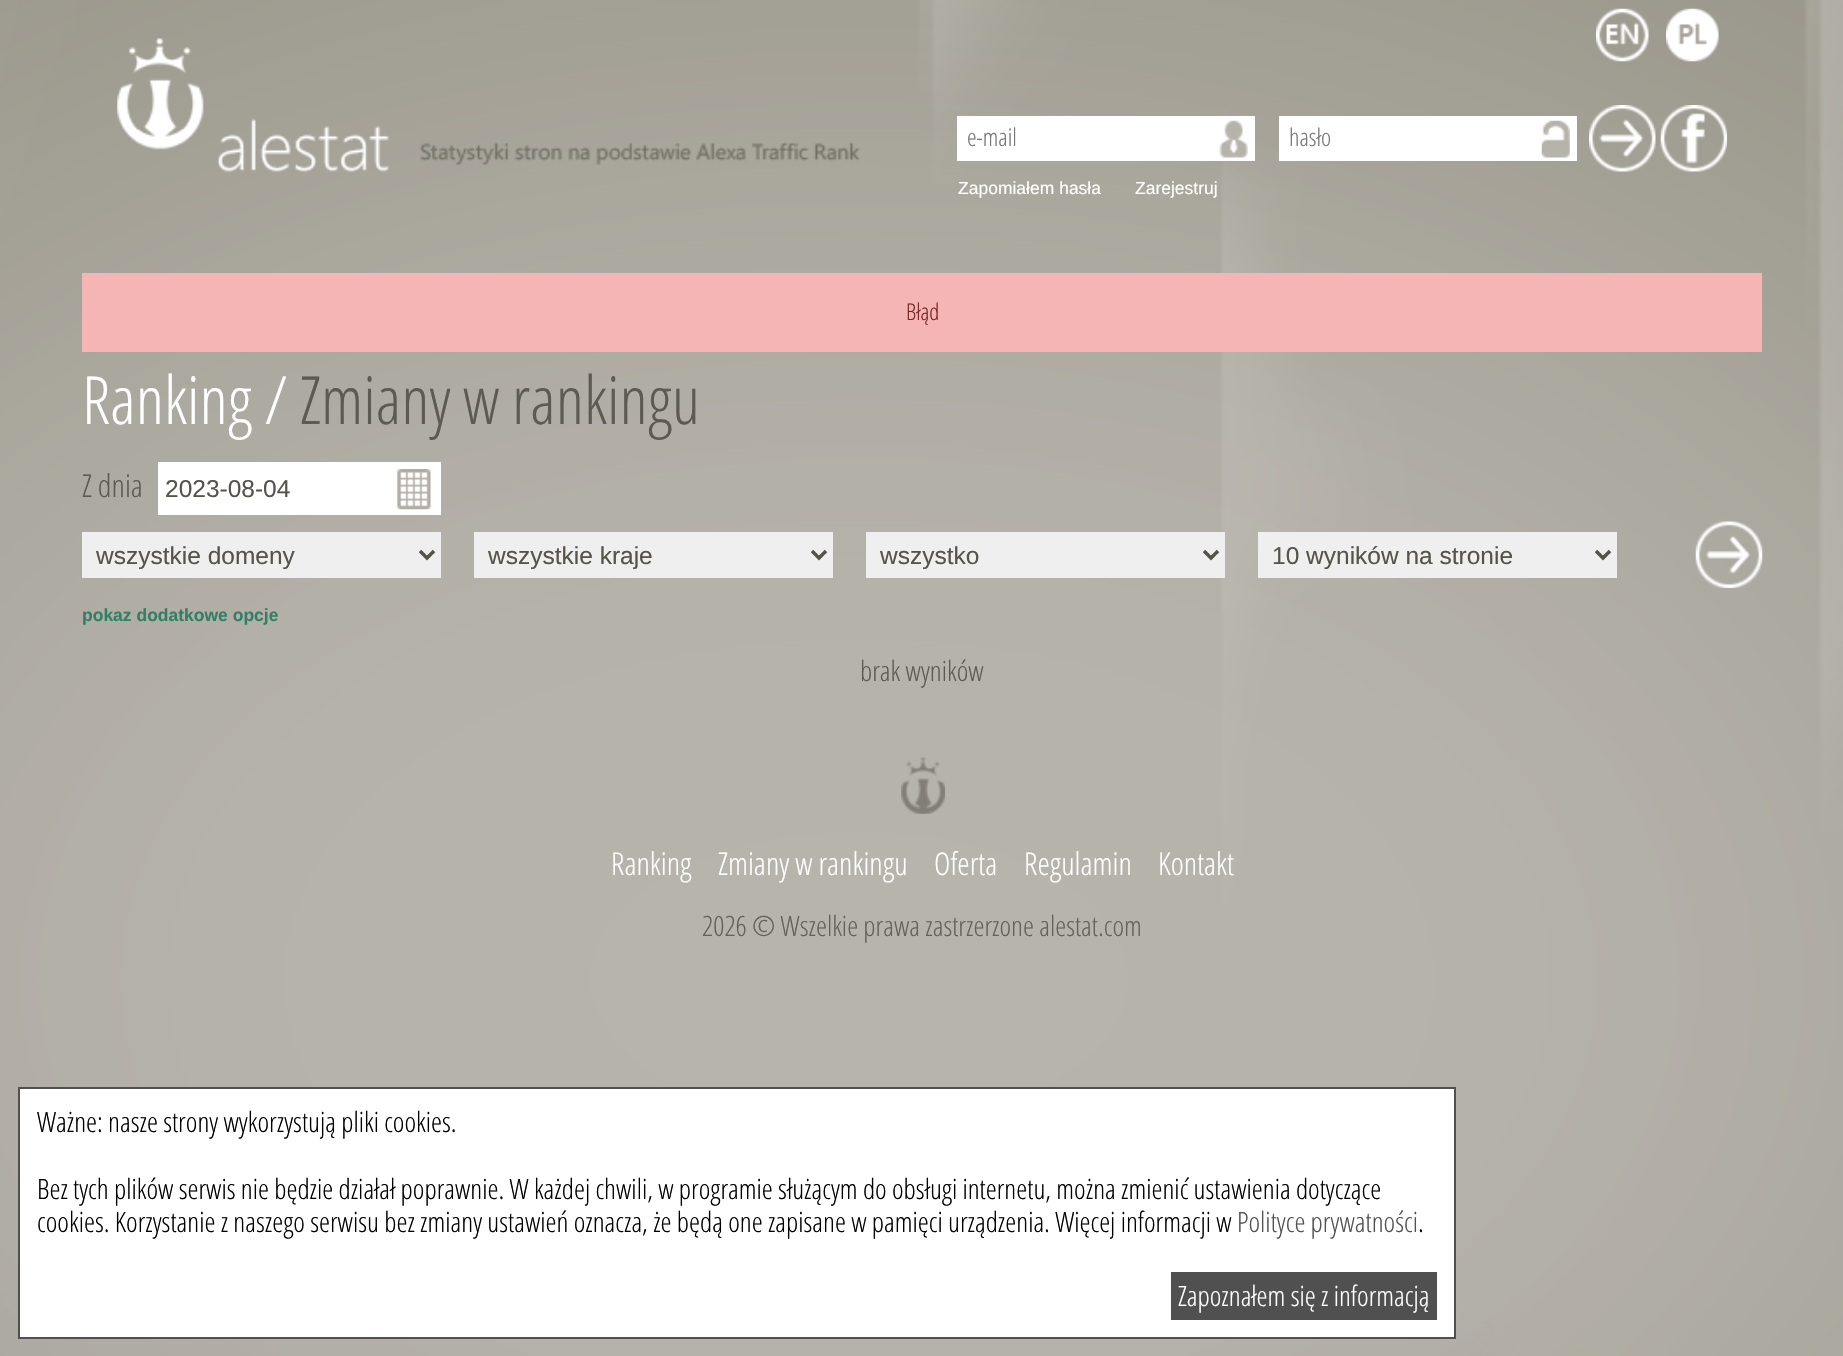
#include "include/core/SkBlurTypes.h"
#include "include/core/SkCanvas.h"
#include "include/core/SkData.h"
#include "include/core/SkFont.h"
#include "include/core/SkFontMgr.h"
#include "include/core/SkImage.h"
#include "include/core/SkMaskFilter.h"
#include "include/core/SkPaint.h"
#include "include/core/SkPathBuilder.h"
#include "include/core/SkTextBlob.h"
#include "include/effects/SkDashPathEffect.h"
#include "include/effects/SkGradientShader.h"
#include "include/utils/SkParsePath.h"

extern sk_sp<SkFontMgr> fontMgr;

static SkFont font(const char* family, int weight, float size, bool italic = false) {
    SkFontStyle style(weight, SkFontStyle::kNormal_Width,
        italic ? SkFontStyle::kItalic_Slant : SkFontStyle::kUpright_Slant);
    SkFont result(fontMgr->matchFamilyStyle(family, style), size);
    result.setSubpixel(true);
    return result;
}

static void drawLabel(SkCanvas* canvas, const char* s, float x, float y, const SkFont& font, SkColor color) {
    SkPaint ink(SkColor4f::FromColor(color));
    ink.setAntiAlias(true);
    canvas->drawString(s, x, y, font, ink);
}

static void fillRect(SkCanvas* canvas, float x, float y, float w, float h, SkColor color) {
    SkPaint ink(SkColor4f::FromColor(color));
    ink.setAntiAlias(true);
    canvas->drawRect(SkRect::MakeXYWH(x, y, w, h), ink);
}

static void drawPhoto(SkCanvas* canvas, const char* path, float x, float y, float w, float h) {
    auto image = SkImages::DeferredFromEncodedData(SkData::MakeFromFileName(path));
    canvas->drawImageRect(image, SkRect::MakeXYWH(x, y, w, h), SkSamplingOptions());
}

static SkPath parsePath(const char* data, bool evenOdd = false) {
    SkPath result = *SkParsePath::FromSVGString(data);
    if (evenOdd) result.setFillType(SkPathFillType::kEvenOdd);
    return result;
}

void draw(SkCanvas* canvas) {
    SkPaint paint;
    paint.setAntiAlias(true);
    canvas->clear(0xFFFFFFFF);
    drawPhoto(canvas, "assets/img1.png", 0, 0, 1843, 1356);
    drawPhoto(canvas, "assets/img2.png", 117, 38, 743, 134);
    fillRect(canvas, 957, 116, 298, 45, 0xFFFFFFFF);
    drawPhoto(canvas, "assets/img3.png", 1219, 120, 29, 38);
    SkFont font1 = font("Open Sans", 300, 24.5f);
    drawLabel(canvas, "e-mail", 967, 146, font1, 0xFF757575);
    fillRect(canvas, 1279, 116, 298, 45, 0xFFFFFFFF);
    drawPhoto(canvas, "assets/img4.png", 1541, 120, 29, 38);
    drawLabel(canvas, "hasło", 1289, 146, font1, 0xFF757575);
    drawPhoto(canvas, "assets/img5.png", 1589, 105, 67, 67);
    drawPhoto(canvas, "assets/img6.png", 1660, 105, 68, 67);
    SkFont font2 = font("Liberation Sans", 400, 17.5f);
    drawLabel(canvas, "Zapomiałem hasła", 958, 194, font2, 0xFFFFFFFF);
    drawLabel(canvas, "Zarejestruj", 1135, 194, font2, 0xFFFFFFFF);
    drawPhoto(canvas, "assets/img7.png", 1596, 8, 53, 54);
    drawPhoto(canvas, "assets/img8.png", 1666, 8, 53, 54);
    fillRect(canvas, 82, 273, 1680, 79, 0xFFF5B5B5);
    SkFont font3 = font("Open Sans", 300, 23);
    drawLabel(canvas, "Błąd", 906, 320, font3, 0xFF772323);
    SkFont font4 = font("Open Sans", 300, 66.5f);
    drawLabel(canvas, "Ranking /", 82, 424, font4, 0xFFFFFFFF);
    drawLabel(canvas, "Zmiany w rankingu", 300, 424, font4, 0xFF5D5A52);
    SkFont font5 = font("Open Sans", 300, 31.5f);
    drawLabel(canvas, "Z dnia", 82, 497, font5, 0xFF5D5A52);
    fillRect(canvas, 158, 462, 283, 53, 0xFFFFFFFF);
    drawPhoto(canvas, "assets/img9.png", 396, 469, 35, 41);
    SkFont font6 = font("Liberation Sans", 400, 24.5f);
    drawLabel(canvas, "2023-08-04", 165, 497, font6, 0xFF56534B);
    fillRect(canvas, 82, 532, 359, 46, 0xFFEFEFEF);
    paint.setStroke(true);
    paint.setStrokeWidth(3.5f);
    paint.setColor(0xFF56534B);
    canvas->drawPath(parsePath("M420 551L427 558L434 551"), paint);
    drawLabel(canvas, "wszystkie domeny", 96, 564, font6, 0xFF56534B);
    fillRect(canvas, 474, 532, 359, 46, 0xFFEFEFEF);
    canvas->drawPath(parsePath("M812 551L819 558L826 551"), paint);
    drawLabel(canvas, "wszystkie kraje", 488, 564, font6, 0xFF56534B);
    fillRect(canvas, 866, 532, 359, 46, 0xFFEFEFEF);
    canvas->drawPath(parsePath("M1204 551L1211 558L1218 551"), paint);
    drawLabel(canvas, "wszystko", 880, 564, font6, 0xFF56534B);
    fillRect(canvas, 1258, 532, 359, 46, 0xFFEFEFEF);
    canvas->drawPath(parsePath("M1596 551L1603 558L1610 551"), paint);
    drawLabel(canvas, "10 wyników na stronie", 1272, 564, font6, 0xFF56534B);
    drawPhoto(canvas, "assets/img10.png", 1695, 521, 68, 67);
    SkFont font7 = font("Liberation Sans", 700, 17.5f);
    drawLabel(canvas, "pokaz dodatkowe opcje", 82, 621, font7, 0xFF327F66);
    SkFont font8 = font("Open Sans", 300, 28);
    drawLabel(canvas, "brak wyników", 860, 681, font8, 0xFF5D5A52);
    drawPhoto(canvas, "assets/img11.png", 901, 757, 44, 57);
    drawLabel(canvas, "Ranking", 611, 875, font5, 0xFFFFFFFF);
    drawLabel(canvas, "Zmiany w rankingu", 718, 875, font5, 0xFFFFFFFF);
    drawLabel(canvas, "Oferta", 934, 875, font5, 0xFFFFFFFF);
    drawLabel(canvas, "Regulamin", 1024, 875, font5, 0xFFFFFFFF);
    drawLabel(canvas, "Kontakt", 1158, 875, font5, 0xFFFFFFFF);
    drawLabel(canvas, "2026 © Wszelkie prawa zastrzerzone alestat.com", 702, 936, font8, 0xFF666156);
    paint.setStroke(false);
    paint.setColor(0xFFFFFFFF);
    canvas->drawRect(SkRect::MakeXYWH(19, 1088, 1436, 250), paint);
    paint.setStroke(true);
    paint.setStrokeWidth(2);
    paint.setColor(0xFF505050);
    canvas->drawRect(SkRect::MakeXYWH(19, 1088, 1436, 250), paint);
    drawLabel(canvas, "Ważne: nasze strony wykorzystują pliki cookies.", 37, 1132, font8, 0xFF000000);
    drawLabel(canvas, "Bez tych plików serwis nie będzie działał poprawnie. W każdej chwili, w programie służącym do obsługi internetu, można zmienić ustawienia dotyczące", 37, 1199, font8, 0xFF000000);
    drawLabel(canvas, "cookies. Korzystanie z naszego serwisu bez zmiany ustawień oznacza, że będą one zapisane w pamięci urządzenia. Więcej informacji w", 37, 1232, font8, 0xFF000000);
    drawLabel(canvas, "Polityce prywatności", 1237, 1232, font8, 0xFF505050);
    drawLabel(canvas, ".", 1418, 1232, font8, 0xFF000000);
    fillRect(canvas, 1171, 1272, 266, 48, 0xFF505050);
    drawLabel(canvas, "Zapoznałem się z informacją", 1178, 1306, font8, 0xFFFFFFFF);
}
